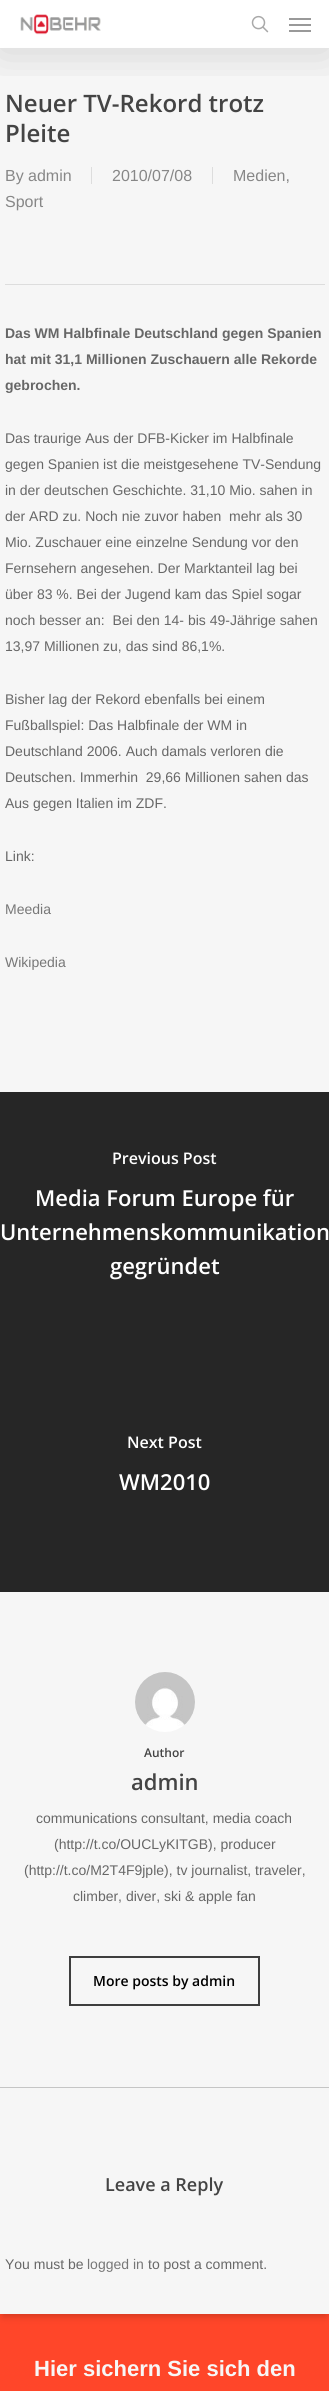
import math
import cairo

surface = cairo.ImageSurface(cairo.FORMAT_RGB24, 329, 2391)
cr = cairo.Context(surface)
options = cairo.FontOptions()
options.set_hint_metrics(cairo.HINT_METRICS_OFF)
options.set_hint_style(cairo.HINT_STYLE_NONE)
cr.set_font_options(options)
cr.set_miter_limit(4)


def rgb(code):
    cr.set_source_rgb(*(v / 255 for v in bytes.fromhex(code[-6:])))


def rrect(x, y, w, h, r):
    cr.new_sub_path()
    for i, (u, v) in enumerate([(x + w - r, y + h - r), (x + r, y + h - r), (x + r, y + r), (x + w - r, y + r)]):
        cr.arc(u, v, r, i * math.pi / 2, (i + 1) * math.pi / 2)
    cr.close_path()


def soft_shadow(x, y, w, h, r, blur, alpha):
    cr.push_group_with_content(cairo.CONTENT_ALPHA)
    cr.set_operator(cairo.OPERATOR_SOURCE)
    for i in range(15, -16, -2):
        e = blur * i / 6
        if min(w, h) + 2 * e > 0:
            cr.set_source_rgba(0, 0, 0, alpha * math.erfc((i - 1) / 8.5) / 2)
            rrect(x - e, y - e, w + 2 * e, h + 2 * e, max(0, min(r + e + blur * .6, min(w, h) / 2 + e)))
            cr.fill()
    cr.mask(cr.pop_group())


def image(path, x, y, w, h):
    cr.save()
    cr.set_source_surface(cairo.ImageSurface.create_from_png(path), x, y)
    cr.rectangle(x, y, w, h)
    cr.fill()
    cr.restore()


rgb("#ffffff")
cr.paint()
rgb("#ff4629")
cr.rectangle(0, 2314, 329, 77)
cr.fill()
rgb("#000000")
soft_shadow(3, 56, 323, 2260, 0, 4, 0.2)
rgb("#f6f6f6")
cr.rectangle(0, 48, 329, 2266)
cr.fill()
cr.save()
cr.rectangle(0, 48, 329, 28)
cr.clip()
rgb("#000000")
soft_shadow(0, 3, 329, 48, 0, 22.5, 0.15)
cr.restore()
image("img/1.png", 20, 14, 81, 21)
image("img/2.png", 251, 15, 18, 18)
for x, y, w, h, color in [
    (289, 18, 22, 2, "#999999"),
    (289, 30, 22, 2, "#999999"),
    (289, 24, 22, 2, "#999999"),
    (5, 284, 320, 1, "#dddddd"),
    (91, 167, 1, 17, "#dddddd"),
    (212, 167, 1, 17, "#dddddd"),
    (0, 1092, 329, 500, "#262626"),
]:
    rgb(color)
    cr.rectangle(x, y, w, h)
    cr.fill()
image("img/3.png", 135, 1672, 60, 60)
cr.rectangle(70, 1957, 189, 48)
rgb("#3e3e3e")
cr.stroke()
rgb("#c5c5c5")
cr.rectangle(0, 2087, 329, 1)
cr.fill()
cr.select_font_face("Open Sans SemiBold")
cr.set_font_size(24)
rgb("#444444")
cr.move_to(5, 112)
cr.show_text("Neuer TV-Rekord trotz")
cr.move_to(5, 142)
cr.show_text("Pleite")
cr.select_font_face("Liberation Sans")
cr.set_font_size(16)
rgb("#878787")
for x, y, s in [
    (5, 181, "By"),
    (28, 181, "admin"),
    (112, 181, "2010/07/08"),
    (233, 181, "Medien,"),
    (5, 207, "Sport"),
]:
    cr.move_to(x, y)
    cr.show_text(s)
cr.select_font_face("Liberation Sans", cairo.FONT_SLANT_NORMAL, cairo.FONT_WEIGHT_BOLD)
cr.set_font_size(14)
rgb("#676767")
for x, y, s in [
    (5, 338, "Das WM Halbfinale Deutschland gegen Spanien"),
    (5, 364, "hat mit 31,1 Millionen Zuschauern alle Rekorde"),
    (5, 390, "gebrochen."),
]:
    cr.move_to(x, y)
    cr.show_text(s)
cr.select_font_face("Liberation Sans")
for x, y, s in [
    (5, 443, "Das traurige Aus der DFB-Kicker im Halbfinale"),
    (5, 469, "gegen Spanien ist die meistgesehene TV-Sendung"),
    (5, 495, "in der deutschen Geschichte. 31,10 Mio. sahen in"),
    (5, 521, "der ARD zu. Noch nie zuvor haben  mehr als 30"),
    (5, 547, "Mio. Zuschauer eine einzelne Sendung vor den"),
    (5, 573, "Fernsehern angesehen. Der Marktanteil lag bei"),
    (5, 599, "über 83 %. Bei der Jugend kam das Spiel sogar"),
    (5, 625, "noch besser an:  Bei den 14- bis 49-Jährige sahen"),
    (5, 651, "13,97 Millionen zu, das sind 86,1%."),
    (5, 704, "Bisher lag der Rekord ebenfalls bei einem"),
    (5, 730, "Fußballspiel: Das Halbfinale der WM in"),
    (5, 756, "Deutschland 2006. Auch damals verloren die"),
    (5, 782, "Deutschen. Immerhin  29,66 Millionen sahen das"),
    (5, 808, "Aus gegen Italien im ZDF."),
    (5, 861, "Link:"),
]:
    cr.move_to(x, y)
    cr.show_text(s)
rgb("#777777")
cr.move_to(5, 914)
cr.show_text("Meedia")
cr.move_to(5, 967)
cr.show_text("Wikipedia")
cr.select_font_face("Open Sans SemiBold")
cr.set_font_size(16)
rgb("#ffffff")
cr.move_to(112, 1164)
cr.show_text("Previous Post")
cr.set_font_size(22)
for x, y, s in [
    (35, 1206, "Media Forum Europe für"),
    (0, 1240, "Unternehmenskommunikation"),
    (110, 1274, "gegründet"),
]:
    cr.move_to(x, y)
    cr.show_text(s)
cr.set_font_size(16)
cr.move_to(127, 1448)
cr.show_text("Next Post")
cr.set_font_size(22)
cr.move_to(119, 1490)
cr.show_text("WM2010")
cr.set_font_size(12)
rgb("#444444")
cr.move_to(144, 1757)
cr.show_text("Author")
cr.set_font_size(22)
cr.move_to(131, 1790)
cr.show_text("admin")
cr.select_font_face("Liberation Sans")
cr.set_font_size(14)
rgb("#676767")
for x, y, s in [
    (36, 1823, "communications consultant, media coach"),
    (54, 1849, "(http://t.co/OUCLyKITGB), producer"),
    (24, 1875, "(http://t.co/M2T4F9jple), tv journalist, traveler,"),
    (73, 1901, "climber, diver, ski & apple fan"),
]:
    cr.move_to(x, y)
    cr.show_text(s)
cr.select_font_face("Open Sans SemiBold")
rgb("#000000")
cr.move_to(93, 1986)
cr.show_text("More posts by admin")
cr.set_font_size(18)
rgb("#444444")
cr.move_to(105, 2191)
cr.show_text("Leave a Reply")
cr.select_font_face("Liberation Sans")
cr.set_font_size(14)
rgb("#676767")
cr.move_to(5, 2269)
cr.show_text("You must be")
rgb("#777777")
cr.move_to(87, 2269)
cr.show_text("logged in")
rgb("#676767")
cr.move_to(148, 2269)
cr.show_text("to post a comment.")
cr.select_font_face("Liberation Sans", cairo.FONT_SLANT_NORMAL, cairo.FONT_WEIGHT_BOLD)
cr.set_font_size(22)
rgb("#f7f7f7")
cr.move_to(34, 2376)
cr.show_text("Hier sichern Sie sich den")
surface.write_to_png("page.png")
